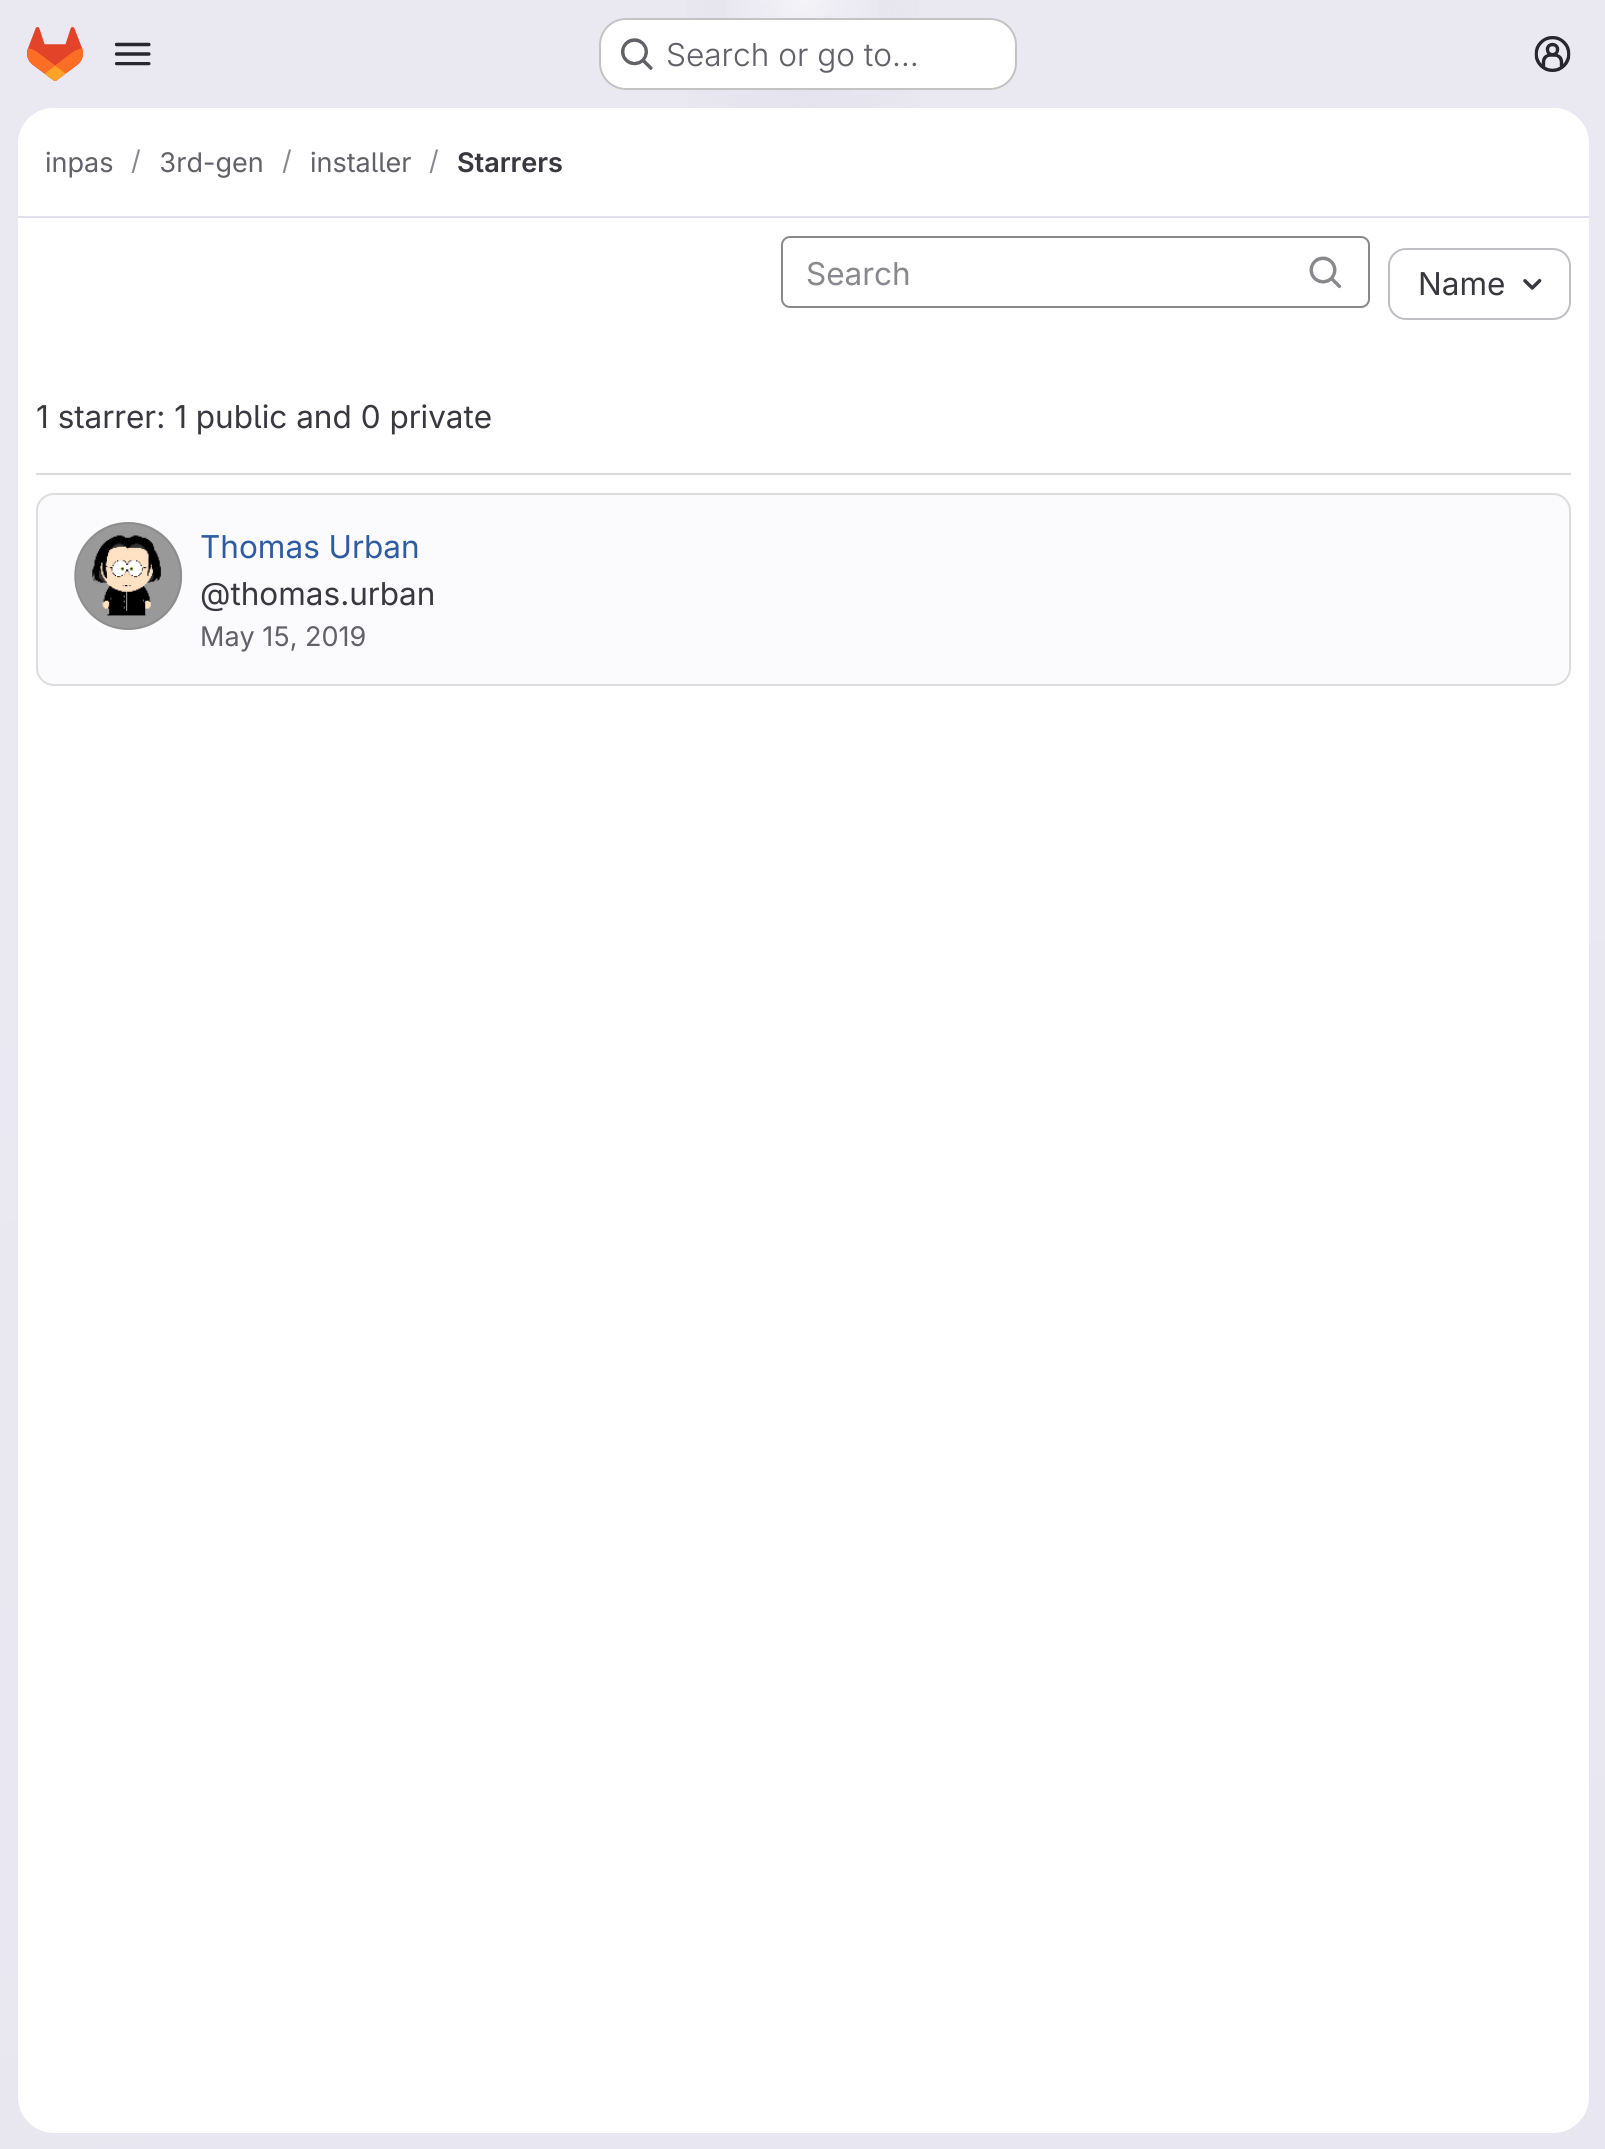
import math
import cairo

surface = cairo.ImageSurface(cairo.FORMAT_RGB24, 1605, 2149)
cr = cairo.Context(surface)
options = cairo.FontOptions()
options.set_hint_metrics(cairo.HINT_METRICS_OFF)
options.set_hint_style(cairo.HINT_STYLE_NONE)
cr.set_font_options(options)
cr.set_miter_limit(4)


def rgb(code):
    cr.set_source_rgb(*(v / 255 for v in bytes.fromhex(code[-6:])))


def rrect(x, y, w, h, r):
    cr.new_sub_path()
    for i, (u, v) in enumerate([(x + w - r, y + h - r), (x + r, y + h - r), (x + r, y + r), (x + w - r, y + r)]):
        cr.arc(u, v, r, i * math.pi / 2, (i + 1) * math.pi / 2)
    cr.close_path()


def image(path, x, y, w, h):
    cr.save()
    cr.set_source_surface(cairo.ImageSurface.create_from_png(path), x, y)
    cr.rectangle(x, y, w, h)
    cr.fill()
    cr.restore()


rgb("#ffffff")
cr.paint()
gradient = cairo.LinearGradient(1011, 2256, 595, -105)
gradient.add_color_stop_rgba(0, 0.91, 0.902, 0.941, 1)
gradient.add_color_stop_rgba(0.7, 0.918, 0.914, 0.949, 1)
cr.set_source(gradient)
cr.rectangle(0, 0, 1605, 2149)
cr.fill()
gradient = cairo.RadialGradient(0, 0, 0, 0, 0, 1)
gradient.set_matrix(cairo.Matrix(1 / 803, 0, 0, 1 / 2151, -1 * 803 / 803, -1 * 0 / 2151))
gradient.add_color_stop_rgba(0, 0.894, 0.886, 0.929, 1)
gradient.add_color_stop_rgba(0.2, 0.894, 0.886, 0.929, 0)
cr.set_source(gradient)
cr.rectangle(687, 0, 232, 108)
cr.fill()
gradient = cairo.RadialGradient(0, 0, 0, 0, 0, 1)
gradient.set_matrix(cairo.Matrix(1 / 803, 0, 0, 1 / 2151, -1 * 803 / 803, -1 * 0 / 2151))
gradient.add_color_stop_rgba(0, 0.894, 0.886, 0.925, 1)
gradient.add_color_stop_rgba(0.14, 0.894, 0.886, 0.925, 0)
cr.set_source(gradient)
cr.rectangle(756, 5, 94, 89)
cr.fill()
gradient = cairo.RadialGradient(803, 0, 0, 803, 0, 2296)
gradient.add_color_stop_rgba(0, 1, 1, 1, 0.6)
gradient.add_color_stop_rgba(0.04, 1, 1, 1, 0)
cr.set_source(gradient)
cr.rectangle(727, 0, 152, 78)
cr.fill()
image("img/1.png", 27, 27, 56, 54)
image("img/2.png", 114, 42, 37, 24)
rgb("#ffffff")
rrect(599, 18, 418, 72, 27)
cr.fill()
rrect(600, 19, 416, 70, 26)
cr.set_source_rgba(0.02, 0.02, 0.024, 0.24)
cr.stroke()
image("img/3.png", 621, 38, 32, 32)
image("img/4.png", 1534, 36, 37, 36)
rgb("#ffffff")
rrect(18, 108, 1571, 2025, 36)
cr.fill()
cr.new_path()
cr.move_to(54, 108)
cr.line_to(1553, 108)
cr.curve_to(1573, 108, 1589, 124, 1589, 144)
cr.line_to(1589, 218)
cr.line_to(18, 218)
cr.line_to(18, 144)
cr.curve_to(18, 124, 34, 108, 54, 108)
cr.close_path()
cr.fill()
rgb("#e1dfec")
cr.rectangle(18, 216, 1571, 2)
cr.fill()
rgb("#dcdcde")
cr.rectangle(36, 473, 1535, 2)
cr.fill()
rrect(782, 237, 587, 70, 8)
rgb("#89888d")
cr.stroke()
image("img/5.png", 1309, 256, 33, 33)
rrect(1389, 249, 181, 70, 17)
rgb("#bfbfc3")
cr.stroke()
image("img/6.png", 1523, 278, 19, 12)
rgb("#fbfafd")
rrect(37, 494, 1533, 191, 17)
cr.fill_preserve()
rgb("#dcdcde")
cr.stroke()
image("img/7.png", 74, 522, 109, 108)
cr.arc(128, 576, 53, 0, 2 * math.pi)
cr.set_source_rgba(0.02, 0.02, 0.024, 0.08)
cr.stroke()
cr.select_font_face("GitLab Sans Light")
cr.set_font_size(31.5)
rgb("#626168")
cr.move_to(666, 66)
cr.show_text("Search or go to…")
cr.select_font_face("GitLab Sans")
cr.set_font_size(27)
cr.move_to(45, 172)
cr.show_text("inpas")
rgb("#89888d")
cr.move_to(131, 170)
cr.show_text("/")
rgb("#626168")
cr.move_to(159, 172)
cr.show_text("3rd-gen")
rgb("#89888d")
cr.move_to(282, 170)
cr.show_text("/")
rgb("#626168")
cr.move_to(310, 172)
cr.show_text("installer")
rgb("#89888d")
cr.move_to(429, 170)
cr.show_text("/")
cr.select_font_face("GitLab Sans SemiBold")
rgb("#3a383f")
cr.move_to(457, 172)
cr.show_text("Starrers")
cr.select_font_face("GitLab Sans")
cr.set_font_size(31.5)
rgb("#89888d")
cr.move_to(806, 285)
cr.show_text("Search")
rgb("#3a383f")
cr.move_to(1418, 295)
cr.show_text("Name")
cr.move_to(36, 428)
cr.show_text("1 starrer: 1 public and 0 private")
rgb("#2f5ca0")
cr.move_to(200, 558)
cr.show_text("Thomas Urban")
rgb("#3a383f")
cr.move_to(200, 605)
cr.show_text("@thomas.urban")
cr.set_font_size(27)
rgb("#626168")
cr.move_to(200, 646)
cr.show_text("May 15, 2019")
surface.write_to_png("page.png")
